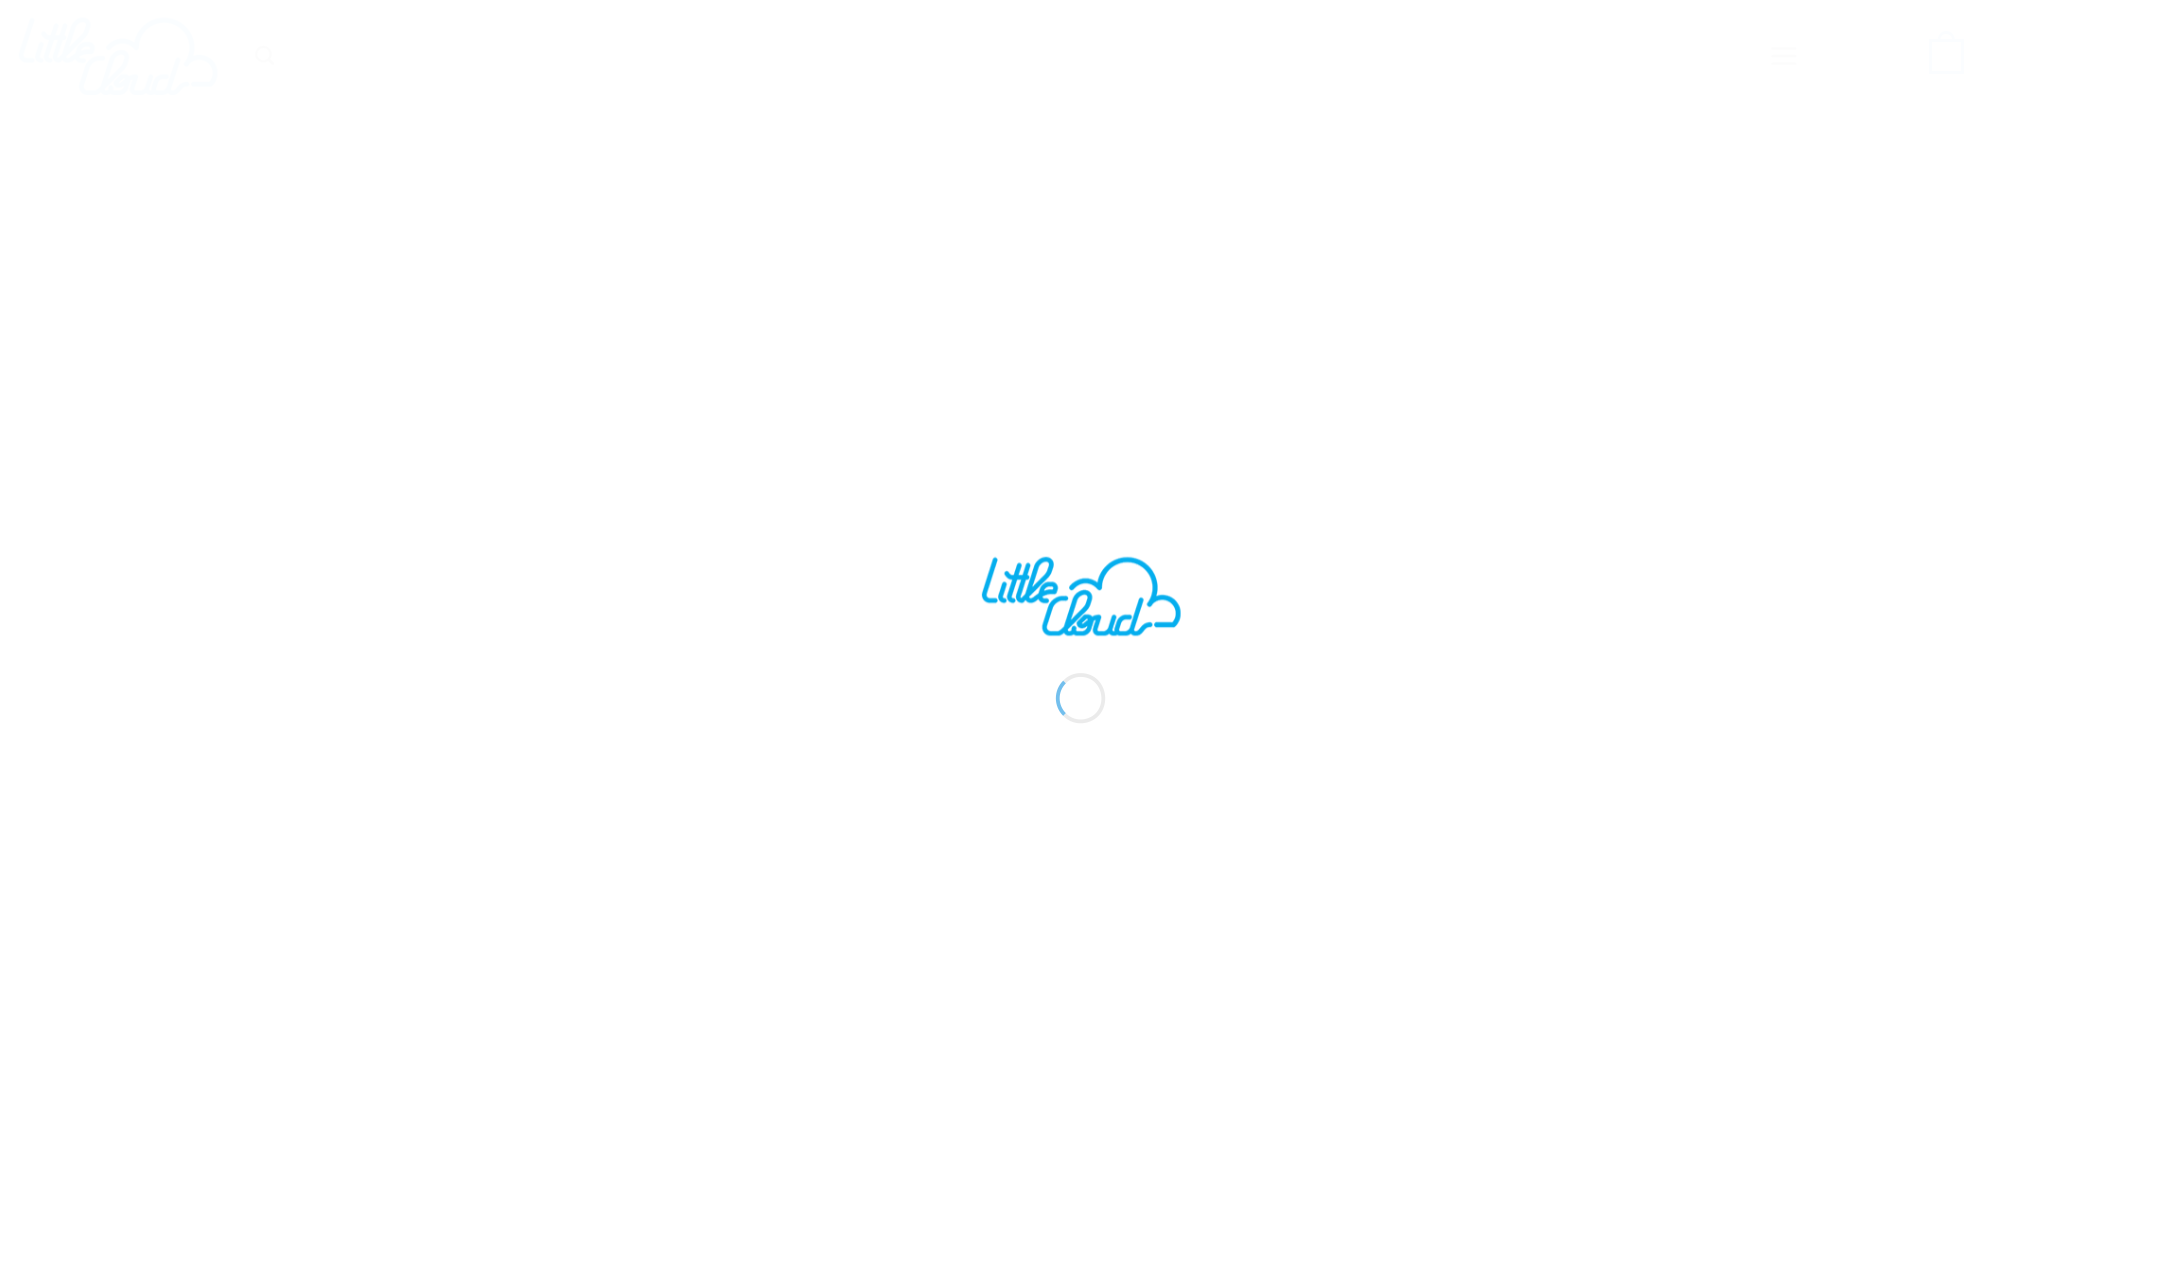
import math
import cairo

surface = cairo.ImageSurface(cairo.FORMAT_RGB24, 2161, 1279)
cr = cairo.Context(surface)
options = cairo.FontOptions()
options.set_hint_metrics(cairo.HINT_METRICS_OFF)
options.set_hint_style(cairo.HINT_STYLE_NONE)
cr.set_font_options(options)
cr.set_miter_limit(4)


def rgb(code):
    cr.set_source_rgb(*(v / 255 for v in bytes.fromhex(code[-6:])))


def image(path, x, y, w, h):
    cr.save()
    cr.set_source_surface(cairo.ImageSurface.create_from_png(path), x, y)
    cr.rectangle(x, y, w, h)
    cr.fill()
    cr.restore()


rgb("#ffffff")
cr.paint()
image("img/1.png", 18, 17, 200, 78)
image("img/2.png", 255, 45, 20, 20)
image("img/3.png", 1771, 47, 26, 18)
cr.rectangle(1930.5, 40.5, 32, 32)
rgb("#fbfdff")
cr.set_line_width(3)
cr.stroke()
cr.set_fill_rule(cairo.FILL_RULE_EVEN_ODD)
cr.new_path()
cr.move_to(1946, 31)
cr.curve_to(1952, 31, 1955, 36, 1955, 41)
cr.line_to(1937.5, 41)
cr.curve_to(1937.5, 36, 1940.5, 31, 1946, 31)
cr.close_path()
cr.move_to(1946, 34)
cr.curve_to(1950.5, 34, 1952.5, 37.5, 1952.5, 41)
cr.line_to(1940, 41)
cr.curve_to(1940, 37.5, 1942, 34, 1946, 34)
cr.close_path()
cr.fill()
image("img/4.png", 981, 556, 200, 81)
cr.new_path()
cr.move_to(1064.5, 682)
cr.curve_to(1068.5, 677.5, 1074.5, 675, 1080.5, 675)
cr.curve_to(1108, 675, 1112, 715.5, 1085, 721)
cr.curve_to(1077.5, 722.5, 1069.5, 720, 1064.5, 714.5)
rgb("#ebebeb")
cr.set_line_width(3.8)
cr.stroke()
cr.new_path()
cr.move_to(1064.5, 714.5)
cr.curve_to(1055.5, 705.5, 1055.5, 691, 1064.5, 682)
rgb("#73bfed")
cr.stroke()
surface.write_to_png("page.png")
